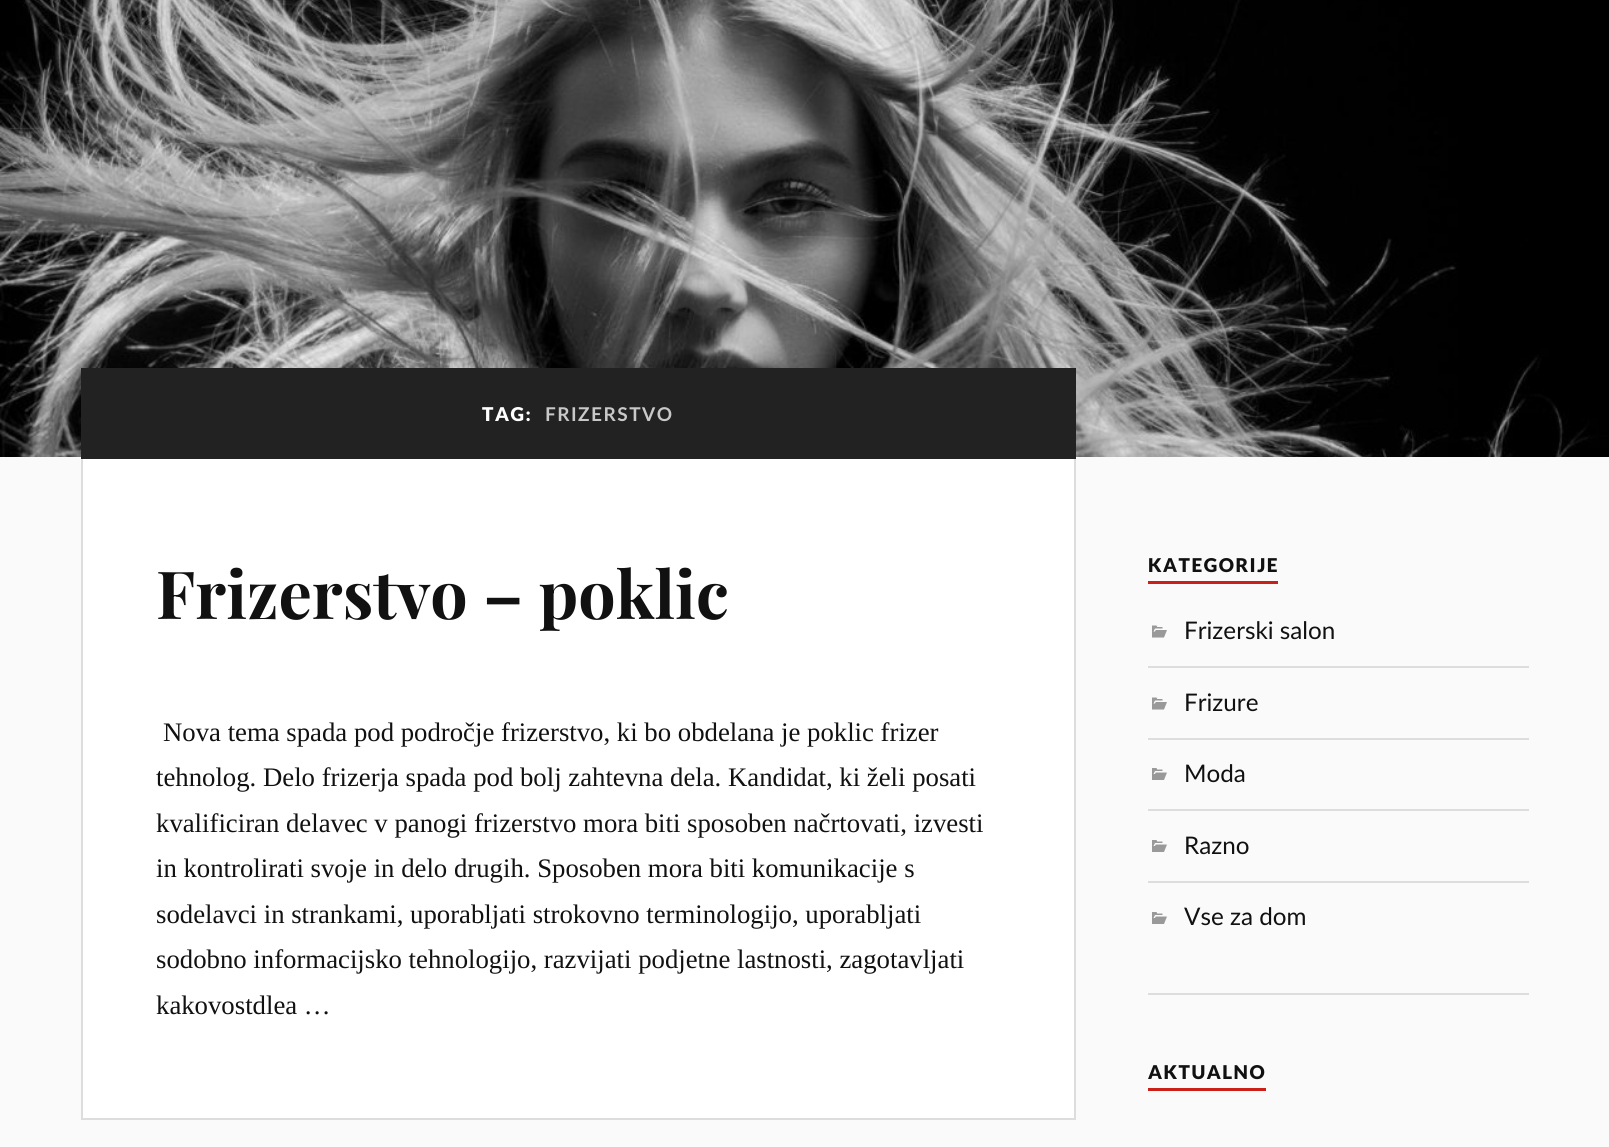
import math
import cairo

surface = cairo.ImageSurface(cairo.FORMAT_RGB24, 1609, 1147)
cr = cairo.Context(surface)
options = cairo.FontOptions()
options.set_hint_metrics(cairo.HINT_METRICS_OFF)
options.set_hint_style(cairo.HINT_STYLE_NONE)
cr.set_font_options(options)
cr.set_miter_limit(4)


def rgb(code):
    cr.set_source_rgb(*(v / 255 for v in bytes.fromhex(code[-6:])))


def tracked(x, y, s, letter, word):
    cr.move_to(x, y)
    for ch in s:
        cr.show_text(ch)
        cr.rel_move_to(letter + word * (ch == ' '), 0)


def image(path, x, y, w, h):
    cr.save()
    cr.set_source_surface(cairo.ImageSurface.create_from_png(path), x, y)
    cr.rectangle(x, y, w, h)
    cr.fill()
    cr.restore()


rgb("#fafafa")
cr.paint()
image("img/1.png", 0, 0, 1609, 457)
for x, y, w, h, color in [
    (81, 368, 995, 91, "#222222"),
    (83, 459, 991, 659, "#ffffff"),
    (1074, 459, 2, 660, "#dddddd"),
    (81, 1118, 995, 2, "#dddddd"),
    (81, 459, 2, 660, "#dddddd"),
    (1148, 581, 130, 3, "#ca2017"),
    (1148, 666, 381, 2, "#dddddd"),
]:
    rgb(color)
    cr.rectangle(x, y, w, h)
    cr.fill()
image("img/2.png", 1152, 625, 15, 13)
cr.rectangle(1148, 738, 381, 2)
cr.fill()
image("img/2.png", 1152, 697, 15, 13)
cr.rectangle(1148, 809, 381, 2)
cr.fill()
image("img/3.png", 1152, 768, 15, 12)
cr.rectangle(1148, 881, 381, 2)
cr.fill()
image("img/3.png", 1152, 840, 15, 12)
image("img/3.png", 1152, 912, 15, 12)
cr.rectangle(1148, 993, 381, 2)
cr.fill()
rgb("#ca2017")
cr.rectangle(1148, 1088, 118, 3)
cr.fill()
cr.select_font_face("Lato Black")
cr.set_font_size(19)
rgb("#ffffff")
tracked(482, 421, "TAG:", 1.5, 0)
cr.select_font_face("Lato", cairo.FONT_SLANT_NORMAL, cairo.FONT_WEIGHT_BOLD)
rgb("#c8c8c8")
tracked(545, 421, "FRIZERSTVO", 1.5, 0)
cr.select_font_face("Playfair Display", cairo.FONT_SLANT_NORMAL, cairo.FONT_WEIGHT_BOLD)
cr.set_font_size(66.25)
rgb("#111111")
cr.move_to(156, 619)
cr.show_text("Frizerstvo – poklic")
cr.select_font_face("Liberation Serif")
cr.set_font_size(26.75)
for x, y, s in [
    (163, 741, "Nova tema spada pod področje frizerstvo, ki bo obdelana je poklic frizer"),
    (156, 786, "tehnolog. Delo frizerja spada pod bolj zahtevna dela. Kandidat, ki želi posati"),
    (156, 832, "kvalificiran delavec v panogi frizerstvo mora biti sposoben načrtovati, izvesti"),
    (156, 877, "in kontrolirati svoje in delo drugih. Sposoben mora biti komunikacije s"),
    (156, 923, "sodelavci in strankami, uporabljati strokovno terminologijo, uporabljati"),
    (156, 968, "sodobno informacijsko tehnologijo, razvijati podjetne lastnosti, zagotavljati"),
    (156, 1014, "kakovostdlea …"),
]:
    cr.move_to(x, y)
    cr.show_text(s)
cr.select_font_face("Lato Black")
cr.set_font_size(19)
tracked(1148, 572, "KATEGORIJE", 1.5, 0)
cr.select_font_face("Lato")
cr.set_font_size(24.25)
for x, y, s in [
    (1184, 639, "Frizerski salon"),
    (1184, 711, "Frizure"),
    (1184, 782, "Moda"),
    (1184, 854, "Razno"),
    (1184, 925, "Vse za dom"),
]:
    cr.move_to(x, y)
    cr.show_text(s)
cr.select_font_face("Lato Black")
cr.set_font_size(19)
tracked(1148, 1079, "AKTUALNO", 1.5, 0)
surface.write_to_png("page.png")
